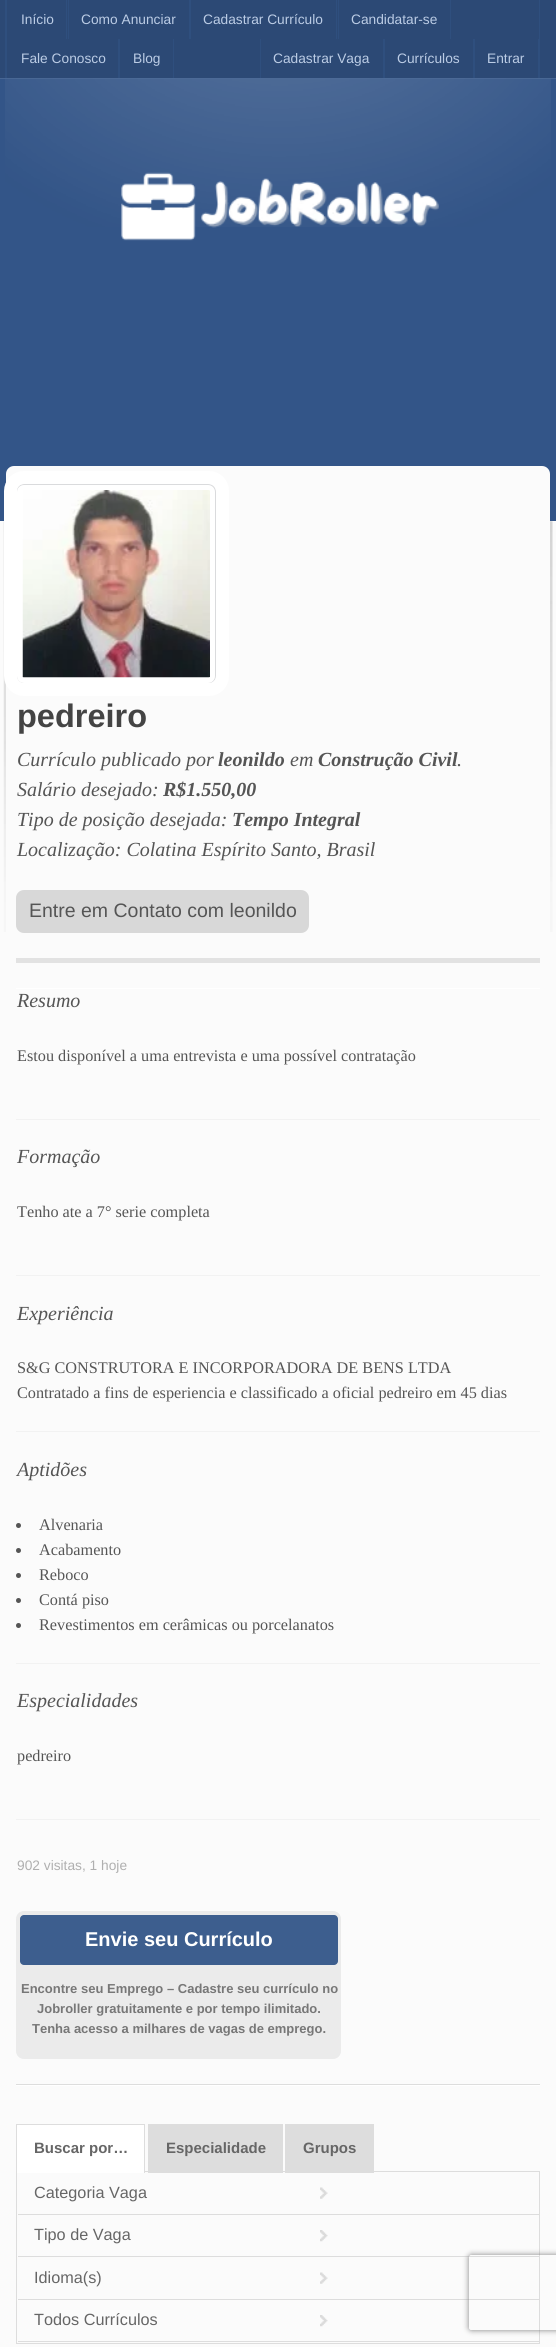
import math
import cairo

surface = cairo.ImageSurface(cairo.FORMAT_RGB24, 556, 2347)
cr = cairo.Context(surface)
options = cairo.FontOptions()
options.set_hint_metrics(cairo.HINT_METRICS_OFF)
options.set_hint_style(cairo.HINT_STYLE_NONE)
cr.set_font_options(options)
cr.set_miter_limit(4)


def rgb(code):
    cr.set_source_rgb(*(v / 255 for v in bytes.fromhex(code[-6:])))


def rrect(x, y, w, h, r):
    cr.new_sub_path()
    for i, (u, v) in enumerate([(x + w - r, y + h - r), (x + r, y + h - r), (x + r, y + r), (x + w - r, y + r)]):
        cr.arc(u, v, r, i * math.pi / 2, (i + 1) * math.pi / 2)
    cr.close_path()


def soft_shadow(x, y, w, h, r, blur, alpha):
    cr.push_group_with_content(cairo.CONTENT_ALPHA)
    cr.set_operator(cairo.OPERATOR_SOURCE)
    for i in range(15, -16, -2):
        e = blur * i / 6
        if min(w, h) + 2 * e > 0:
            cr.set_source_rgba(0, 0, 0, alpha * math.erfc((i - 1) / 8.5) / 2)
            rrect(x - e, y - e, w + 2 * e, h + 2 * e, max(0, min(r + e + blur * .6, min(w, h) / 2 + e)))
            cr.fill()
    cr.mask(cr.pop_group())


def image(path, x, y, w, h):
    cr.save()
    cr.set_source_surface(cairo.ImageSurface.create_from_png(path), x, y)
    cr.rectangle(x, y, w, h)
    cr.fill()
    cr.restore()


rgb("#fbfbfb")
cr.paint()
for x, y, w, h, color in [
    (0, 0, 556, 78, "#2c4975"),
    (539, 0, 1, 78, "#2f4f7e"),
    (5, 0, 1, 78, "#2f4f7e"),
    (66, 0, 1, 39, "#2f4f7e"),
    (6, 0, 1, 78, "#2f4f7e"),
    (189, 0, 2, 39, "#2f4f7e"),
    (68, 0, 1, 39, "#2f4f7e"),
    (336, 0, 1, 39, "#2f4f7e"),
    (450, 0, 1, 39, "#2f4f7e"),
    (338, 0, 1, 39, "#2f4f7e"),
    (118, 39, 2, 39, "#2f4f7e"),
    (173, 39, 1, 39, "#2f4f7e"),
    (260, 39, 1, 39, "#2f4f7e"),
    (383, 39, 2, 39, "#2f4f7e"),
    (538, 39, 1, 39, "#2f4f7e"),
    (473, 39, 2, 39, "#2f4f7e"),
    (0, 79, 556, 442, "#335588"),
    (0, 78, 556, 1, "#476694"),
]:
    rgb(color)
    cr.rectangle(x, y, w, h)
    cr.fill()
image("img/1.png", 5, 78, 546, 149)
image("img/2.png", 121, 172, 318, 69)
image("img/3.png", 3, 521, 550, 411)
rgb("#fbfbfb")
rrect(6, 466, 544, 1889, 8)
cr.fill()
rgb("#e2e2e2")
cr.rectangle(16, 958, 524, 5)
cr.fill()
rgb("#ffffff")
rrect(16.5, 484.5, 199, 199, 7.5)
cr.fill_preserve()
rgb("#dadbdd")
cr.set_line_width(1)
cr.stroke()
image("img/4.png", 22, 490, 188, 188)
rrect(10.5, 477.5, 212, 212, 13.5)
rgb("#ffffff")
cr.set_line_width(13)
cr.stroke()
rgb("#d8d8d8")
rrect(16, 890, 293, 43, 8)
cr.fill()
for x, y, w, h, color in [
    (16, 988, 524, 1, "#ffffff"),
    (16, 1119, 524, 1, "#f2f2f2"),
    (16, 1275, 524, 1, "#f2f2f2"),
    (16, 1431, 524, 1, "#f2f2f2"),
    (16, 1663, 524, 1, "#f2f2f2"),
]:
    rgb(color)
    cr.rectangle(x, y, w, h)
    cr.fill()
rgb("#555555")
cr.arc(18.5, 1525.5, 2.5, 0, 2 * math.pi)
cr.fill()
cr.arc(18.5, 1550.5, 2.5, 0, 2 * math.pi)
cr.fill()
cr.arc(18.5, 1575.5, 2.5, 0, 2 * math.pi)
cr.fill()
cr.arc(18.5, 1600.5, 2.5, 0, 2 * math.pi)
cr.fill()
cr.arc(18.5, 1625.5, 2.5, 0, 2 * math.pi)
cr.fill()
rgb("#f2f2f2")
cr.rectangle(16, 1819, 524, 1)
cr.fill()
rgb("#dddddd")
cr.rectangle(16, 2084, 524, 1)
cr.fill()
rgb("#ebebeb")
rrect(16, 1911, 325, 148, 8)
cr.fill()
rgb("#3d5e8e")
rrect(20, 1915, 318, 50, 4)
cr.fill()
rgb("#ffffff")
cr.rectangle(16, 2085, 524, 1)
cr.fill()
cr.rectangle(16.5, 2171.5, 523, 172)
rgb("#dddddd")
cr.set_line_width(1)
cr.stroke()
for x, y, w, h, color in [
    (17, 2125, 127, 48, "#ffffff"),
    (16, 2124, 129, 1, "#dddddd"),
    (144, 2124, 1, 49, "#dddddd"),
    (16, 2124, 1, 49, "#dddddd"),
    (148, 2124, 135, 49, "#dddddd"),
    (285, 2124, 89, 49, "#dddddd"),
]:
    rgb(color)
    cr.rectangle(x, y, w, h)
    cr.fill()
image("img/5.png", 320, 2187, 8, 12)
cr.rectangle(18, 2214, 521, 1)
cr.fill()
image("img/6.png", 320, 2230, 8, 12)
cr.rectangle(18, 2256, 521, 1)
cr.fill()
image("img/5.png", 320, 2272, 8, 12)
cr.rectangle(18, 2299, 521, 1)
cr.fill()
image("img/6.png", 320, 2315, 8, 12)
cr.rectangle(18, 2341, 521, 1)
cr.fill()
cr.save()
cr.set_fill_rule(cairo.FILL_RULE_EVEN_ODD)
cr.new_path()
cr.move_to(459, 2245)
cr.line_to(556, 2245)
cr.line_to(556, 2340)
cr.line_to(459, 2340)
cr.close_path()
cr.move_to(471.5, 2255)
cr.line_to(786.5, 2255)
cr.curve_to(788, 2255, 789, 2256, 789, 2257.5)
cr.line_to(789, 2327.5)
cr.curve_to(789, 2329, 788, 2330, 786.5, 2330)
cr.line_to(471.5, 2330)
cr.curve_to(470, 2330, 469, 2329, 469, 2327.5)
cr.line_to(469, 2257.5)
cr.curve_to(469, 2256, 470, 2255, 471.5, 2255)
cr.close_path()
cr.clip()
rgb("#808080")
soft_shadow(469, 2255, 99, 75, 2.5, 3, 1)
cr.restore()
cr.select_font_face("Liberation Sans")
cr.set_font_size(13.75)
rgb("#bbcce5")
for x, y, s in [
    (21, 24, "Início"),
    (81, 24, "Como Anunciar"),
    (203, 24, "Cadastrar Currículo"),
    (351, 24, "Candidatar-se"),
    (21, 63, "Fale Conosco"),
    (133, 63, "Blog"),
    (273, 63, "Cadastrar Vaga"),
    (397, 63, "Currículos"),
    (487, 63, "Entrar"),
]:
    cr.move_to(x, y)
    cr.show_text(s)
cr.select_font_face("Liberation Sans", cairo.FONT_SLANT_NORMAL, cairo.FONT_WEIGHT_BOLD)
cr.set_font_size(32.5)
rgb("#444444")
cr.move_to(17, 727)
cr.show_text("pedreiro")
cr.select_font_face("Liberation Serif", cairo.FONT_SLANT_ITALIC)
cr.set_font_size(20)
rgb("#555555")
cr.move_to(17, 766)
cr.show_text("Currículo publicado por")
cr.select_font_face("Liberation Serif", cairo.FONT_SLANT_ITALIC, cairo.FONT_WEIGHT_BOLD)
cr.move_to(218, 766)
cr.show_text("leonildo")
cr.select_font_face("Liberation Serif", cairo.FONT_SLANT_ITALIC)
cr.move_to(290, 766)
cr.show_text("em")
cr.select_font_face("Liberation Serif", cairo.FONT_SLANT_ITALIC, cairo.FONT_WEIGHT_BOLD)
cr.move_to(318, 766)
cr.show_text("Construção Civil")
cr.select_font_face("Liberation Serif", cairo.FONT_SLANT_ITALIC)
cr.move_to(457, 766)
cr.show_text(".")
cr.move_to(17, 796)
cr.show_text("Salário desejado:")
cr.select_font_face("Liberation Serif", cairo.FONT_SLANT_ITALIC, cairo.FONT_WEIGHT_BOLD)
cr.move_to(163, 796)
cr.show_text("R$1.550,00")
cr.select_font_face("Liberation Serif", cairo.FONT_SLANT_ITALIC)
cr.move_to(17, 826)
cr.show_text("Tipo de posição desejada:")
cr.select_font_face("Liberation Serif", cairo.FONT_SLANT_ITALIC, cairo.FONT_WEIGHT_BOLD)
cr.move_to(232, 826)
cr.show_text("Tempo Integral")
cr.select_font_face("Liberation Serif", cairo.FONT_SLANT_ITALIC)
cr.move_to(17, 856)
cr.show_text("Localização: Colatina Espírito Santo, Brasil")
cr.select_font_face("Liberation Sans")
cr.set_font_size(19.5)
cr.move_to(29, 917)
cr.show_text("Entre em Contato com leonildo")
cr.select_font_face("Liberation Serif", cairo.FONT_SLANT_ITALIC)
cr.set_font_size(20)
cr.move_to(17, 1007)
cr.show_text("Resumo")
cr.select_font_face("Liberation Serif")
cr.set_font_size(16.25)
cr.move_to(17, 1061)
cr.show_text("Estou disponível a uma entrevista e uma possível contratação")
cr.select_font_face("Liberation Serif", cairo.FONT_SLANT_ITALIC)
cr.set_font_size(20)
cr.move_to(17, 1163)
cr.show_text("Formação")
cr.select_font_face("Liberation Serif")
cr.set_font_size(16.25)
cr.move_to(17, 1217)
cr.show_text("Tenho ate a 7° serie completa")
cr.select_font_face("Liberation Serif", cairo.FONT_SLANT_ITALIC)
cr.set_font_size(20)
cr.move_to(17, 1320)
cr.show_text("Experiência")
cr.select_font_face("Liberation Serif")
cr.set_font_size(16.25)
cr.move_to(17, 1373)
cr.show_text("S&G CONSTRUTORA E INCORPORADORA DE BENS LTDA")
cr.move_to(17, 1398)
cr.show_text("Contratado a fins de esperiencia e classificado a oficial pedreiro em 45 dias")
cr.select_font_face("Liberation Serif", cairo.FONT_SLANT_ITALIC)
cr.set_font_size(20)
cr.move_to(17, 1476)
cr.show_text("Aptidões")
cr.select_font_face("Liberation Serif")
cr.set_font_size(16.25)
for x, y, s in [
    (39, 1530, "Alvenaria"),
    (39, 1555, "Acabamento"),
    (39, 1580, "Reboco"),
    (39, 1605, "Contá piso"),
    (39, 1630, "Revestimentos em cerâmicas ou porcelanatos"),
]:
    cr.move_to(x, y)
    cr.show_text(s)
cr.select_font_face("Liberation Serif", cairo.FONT_SLANT_ITALIC)
cr.set_font_size(20)
cr.move_to(17, 1707)
cr.show_text("Especialidades")
cr.select_font_face("Liberation Serif")
cr.set_font_size(16.25)
cr.move_to(17, 1761)
cr.show_text("pedreiro")
cr.select_font_face("Liberation Sans")
cr.set_font_size(13.75)
rgb("#afafaf")
cr.move_to(17, 1870)
cr.show_text("902 visitas, 1 hoje")
cr.select_font_face("Liberation Sans", cairo.FONT_SLANT_NORMAL, cairo.FONT_WEIGHT_BOLD)
cr.set_font_size(20)
rgb("#ffffff")
cr.move_to(85, 1946)
cr.show_text("Envie seu Currículo")
cr.set_font_size(13)
rgb("#777777")
for x, y, s in [
    (21, 1993, "Encontre seu Emprego – Cadastre seu currículo no"),
    (37, 2013, "Jobroller gratuitamente e por tempo ilimitado."),
    (32, 2033, "Tenha acesso a milhares de vagas de emprego."),
]:
    cr.move_to(x, y)
    cr.show_text(s)
cr.set_font_size(15)
rgb("#666666")
for x, y, s in [
    (34, 2153, "Buscar por…"),
    (166, 2153, "Especialidade"),
    (303, 2153, "Grupos"),
]:
    cr.move_to(x, y)
    cr.show_text(s)
cr.select_font_face("Liberation Sans")
cr.set_font_size(16.25)
for x, y, s in [
    (34, 2198, "Categoria Vaga"),
    (34, 2240, "Tipo de Vaga"),
    (34, 2283, "Idioma(s)"),
    (34, 2325, "Todos Currículos"),
]:
    cr.move_to(x, y)
    cr.show_text(s)
surface.write_to_png("page.png")
